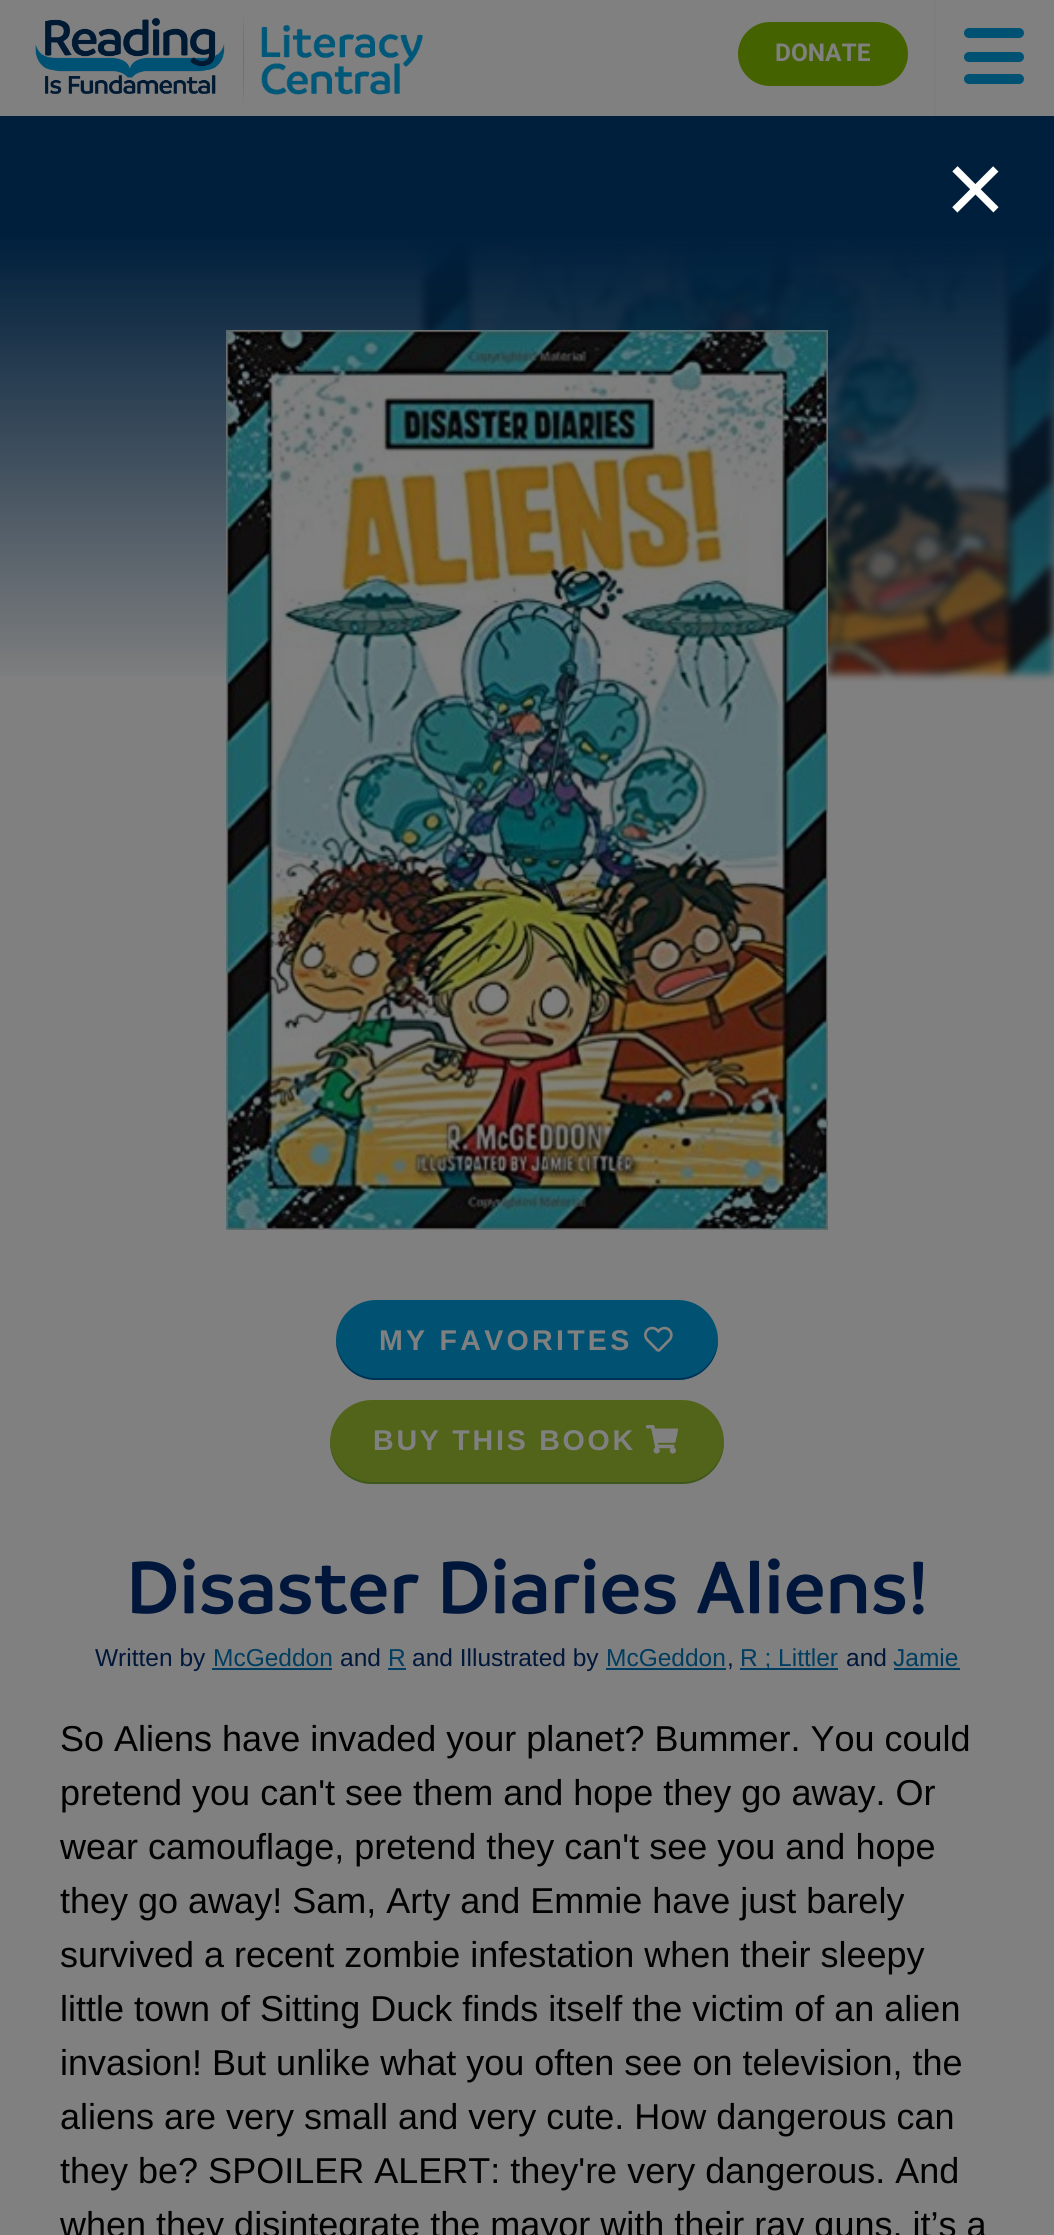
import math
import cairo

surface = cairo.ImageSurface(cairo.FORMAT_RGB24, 1054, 2235)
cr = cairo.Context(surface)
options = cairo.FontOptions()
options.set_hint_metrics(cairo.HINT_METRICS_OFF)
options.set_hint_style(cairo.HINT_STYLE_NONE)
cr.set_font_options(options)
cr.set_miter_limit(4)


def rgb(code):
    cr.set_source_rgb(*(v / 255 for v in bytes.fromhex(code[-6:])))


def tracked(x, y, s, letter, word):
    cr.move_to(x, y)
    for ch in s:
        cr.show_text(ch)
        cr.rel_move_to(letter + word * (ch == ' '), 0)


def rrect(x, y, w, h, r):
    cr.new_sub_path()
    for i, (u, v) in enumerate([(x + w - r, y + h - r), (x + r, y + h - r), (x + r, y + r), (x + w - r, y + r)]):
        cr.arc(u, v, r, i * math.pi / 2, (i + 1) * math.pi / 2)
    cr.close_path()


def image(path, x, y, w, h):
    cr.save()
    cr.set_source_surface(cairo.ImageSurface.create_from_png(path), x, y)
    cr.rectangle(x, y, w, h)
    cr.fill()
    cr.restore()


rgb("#808080")
cr.paint()
image("img/1.png", 35, 18, 190, 76)
image("img/2.png", 242, 15, 2, 92)
image("img/3.png", 261, 24, 162, 71)
rgb("#456200")
rrect(738, 22, 170, 64, 32)
cr.fill()
rgb("#7c7d7d")
cr.new_path()
cr.move_to(934, 116)
cr.line_to(934, -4)
cr.line_to(936, -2)
cr.line_to(936, 114)
cr.close_path()
cr.fill()
rgb("#005172")
rrect(964, 28, 60, 10, 5)
cr.fill()
rrect(964, 52, 60, 10, 5)
cr.fill()
rrect(964, 74, 60, 10, 5)
cr.fill()
image("img/4.png", 415, 239, 639, 443)
gradient = cairo.LinearGradient(527, 86, 527, 686)
gradient.add_color_stop_rgba(0, 0, 0.122, 0.235, 1)
gradient.add_color_stop_rgba(0.25, 0, 0.122, 0.235, 1)
gradient.add_color_stop_rgba(1, 0, 0.122, 0.235, 0)
cr.set_source(gradient)
cr.rectangle(0, 116, 1054, 560)
cr.fill()
image("img/5.png", 226, 330, 602, 900)
rgb("#005172")
rrect(336, 1300, 382, 80, 40)
cr.fill()
rgb("#003356")
cr.new_path()
cr.move_to(336, 1339)
cr.line_to(336, 1340)
cr.curve_to(336, 1362, 354, 1380, 376, 1380)
cr.line_to(678, 1380)
cr.curve_to(700, 1380, 718, 1362, 718, 1340)
cr.line_to(718, 1339)
cr.curve_to(717, 1361, 700, 1378, 678, 1378)
cr.line_to(376, 1378)
cr.curve_to(354, 1378, 337, 1361, 336, 1339)
cr.close_path()
cr.fill()
image("img/6.png", 644, 1326, 29, 26)
rgb("#52631a")
rrect(330, 1400, 394, 84, 42)
cr.fill()
cr.set_source_rgba(0.157, 0.306, 0.102, 0.5)
cr.new_path()
cr.move_to(330, 1441)
cr.line_to(330, 1442)
cr.curve_to(330, 1465, 349, 1484, 372, 1484)
cr.line_to(682, 1484)
cr.curve_to(705, 1484, 724, 1465, 724, 1442)
cr.line_to(724, 1441)
cr.curve_to(723, 1464, 705, 1482, 682, 1482)
cr.line_to(372, 1482)
cr.curve_to(349, 1482, 331, 1464, 330, 1441)
cr.close_path()
cr.fill()
image("img/7.png", 646, 1425, 33, 29)
for x, y, w, h, color in [
    (212, 1668, 120, 2, "#003d60"),
    (388, 1668, 18, 2, "#003d60"),
    (606, 1668, 120, 2, "#003d60"),
    (740, 1668, 98, 2, "#003d60"),
    (894, 1668, 66, 2, "#003d60"),
]:
    rgb(color)
    cr.rectangle(x, y, w, h)
    cr.fill()
cr.select_font_face("Roboto", cairo.FONT_SLANT_NORMAL, cairo.FONT_WEIGHT_BOLD)
cr.set_font_size(24.5)
rgb("#808080")
cr.move_to(775, 61)
cr.show_text("DONATE")
cr.select_font_face("Liberation Sans")
cr.set_font_size(104)
rgb("#ffffff")
cr.move_to(945, 224)
cr.show_text("×")
cr.select_font_face("Liberation Sans", cairo.FONT_SLANT_NORMAL, cairo.FONT_WEIGHT_BOLD)
cr.set_font_size(28.6)
rgb("#808080")
tracked(379, 1350, "MY FAVORITES", 3.25, 0)
tracked(373, 1450, "BUY THIS BOOK", 2.75, 0)
cr.select_font_face("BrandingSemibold")
cr.set_font_size(79.25)
rgb("#00163b")
cr.move_to(126, 1613)
cr.show_text("Disaster Diaries Aliens!")
cr.select_font_face("Liberation Sans")
cr.set_font_size(24.5)
cr.move_to(95, 1666)
cr.show_text("Written by")
rgb("#003d60")
cr.move_to(213, 1666)
cr.show_text("McGeddon")
rgb("#00163b")
cr.move_to(340, 1666)
cr.show_text("and")
rgb("#003d60")
cr.move_to(388, 1666)
cr.show_text("R")
rgb("#00163b")
cr.move_to(412, 1666)
cr.show_text("and Illustrated by")
rgb("#003d60")
cr.move_to(606, 1666)
cr.show_text("McGeddon")
rgb("#00163b")
cr.move_to(727, 1666)
cr.show_text(",")
rgb("#003d60")
cr.move_to(740, 1666)
cr.show_text("R ; Littler")
rgb("#00163b")
cr.move_to(846, 1666)
cr.show_text("and")
rgb("#003d60")
cr.move_to(893, 1666)
cr.show_text("Jamie")
cr.set_font_size(36)
rgb("#000000")
for x, y, s in [
    (60, 1751, "So Aliens have invaded your planet? Bummer. You could"),
    (60, 1805, "pretend you can't see them and hope they go away. Or"),
    (60, 1859, "wear camouflage, pretend they can't see you and hope"),
    (60, 1913, "they go away! Sam, Arty and Emmie have just barely"),
    (60, 1967, "survived a recent zombie infestation when their sleepy"),
    (60, 2021, "little town of Sitting Duck finds itself the victim of an alien"),
    (60, 2075, "invasion! But unlike what you often see on television, the"),
    (60, 2129, "aliens are very small and very cute. How dangerous can"),
    (60, 2183, "they be? SPOILER ALERT: they're very dangerous. And"),
    (60, 2237, "when they disintegrate the mayor with their ray guns, it’s a"),
]:
    cr.move_to(x, y)
    cr.show_text(s)
surface.write_to_png("page.png")
